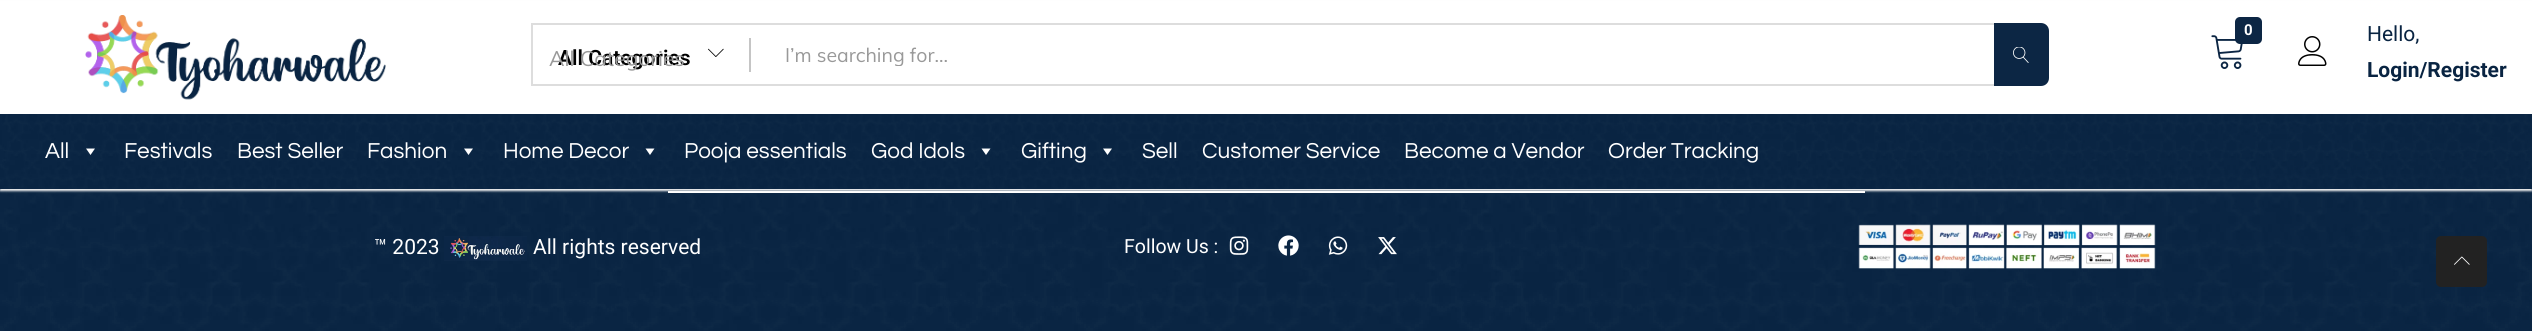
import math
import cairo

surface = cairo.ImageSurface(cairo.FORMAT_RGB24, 2532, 331)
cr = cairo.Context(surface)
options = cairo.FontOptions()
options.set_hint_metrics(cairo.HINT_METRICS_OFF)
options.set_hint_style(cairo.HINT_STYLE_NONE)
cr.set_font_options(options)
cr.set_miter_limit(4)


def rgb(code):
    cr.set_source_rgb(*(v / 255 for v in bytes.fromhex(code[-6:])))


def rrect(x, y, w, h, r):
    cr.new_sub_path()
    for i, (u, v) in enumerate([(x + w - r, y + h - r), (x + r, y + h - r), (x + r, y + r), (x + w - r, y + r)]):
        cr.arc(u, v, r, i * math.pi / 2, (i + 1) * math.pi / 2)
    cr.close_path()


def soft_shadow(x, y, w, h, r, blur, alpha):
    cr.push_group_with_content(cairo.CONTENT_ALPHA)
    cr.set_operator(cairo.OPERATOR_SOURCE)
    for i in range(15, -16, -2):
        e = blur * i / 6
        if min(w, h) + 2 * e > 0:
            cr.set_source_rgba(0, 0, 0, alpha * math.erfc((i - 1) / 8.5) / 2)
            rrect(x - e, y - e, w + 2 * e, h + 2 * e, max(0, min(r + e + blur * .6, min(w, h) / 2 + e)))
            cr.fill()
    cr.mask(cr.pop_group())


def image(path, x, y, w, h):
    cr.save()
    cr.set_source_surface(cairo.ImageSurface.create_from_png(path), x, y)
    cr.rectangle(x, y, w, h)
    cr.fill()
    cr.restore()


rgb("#ffffff")
cr.paint()
image("img/7.png", 0, 189, 2532, 142)
rgb("#ffffff")
cr.rectangle(668, 191, 1197, 2)
cr.fill()
rgb("#f0f0f0")
soft_shadow(0, 2, 2532, 189, 0, 1, 1)
rgb("#ffffff")
cr.rectangle(0, 1, 2532, 113)
cr.fill()
image("img/1.png", 85, 15, 301, 85)
for x, y, w, h, color in [
    (531, 23, 1463, 2, "#dddddd"),
    (531, 84, 1463, 2, "#dddddd"),
    (531, 23, 2, 63, "#dddddd"),
]:
    rgb(color)
    cr.rectangle(x, y, w, h)
    cr.fill()
image("img/2.png", 708, 48, 16, 9)
rgb("#c5c5c5")
cr.rectangle(749, 38, 2, 34)
cr.fill()
rgb("#0c2644")
cr.new_path()
cr.move_to(1994, 23)
cr.line_to(2041, 23)
cr.curve_to(2045.5, 23, 2049, 26.5, 2049, 31)
cr.line_to(2049, 78)
cr.curve_to(2049, 82.5, 2045.5, 86, 2041, 86)
cr.line_to(1994, 86)
cr.close_path()
cr.fill()
image("img/3.png", 2013, 47, 16, 16)
image("img/4.png", 2211, 35, 32, 34)
rrect(2235, 17, 27, 27, 5)
cr.fill()
image("img/5.png", 2298, 36, 29, 30)
image("img/6.png", 0, 114, 2532, 75)
rgb("#ffffff")
cr.new_path()
cr.move_to(95, 148.5)
cr.line_to(90.5, 155)
cr.line_to(86, 148.5)
cr.close_path()
cr.fill()
cr.new_path()
cr.move_to(473, 148.5)
cr.line_to(468.5, 155)
cr.line_to(464, 148.5)
cr.close_path()
cr.fill()
cr.new_path()
cr.move_to(654.5, 148.5)
cr.line_to(650, 155)
cr.line_to(645.5, 148.5)
cr.close_path()
cr.fill()
cr.new_path()
cr.move_to(990.5, 148.5)
cr.line_to(986, 155)
cr.line_to(981.5, 148.5)
cr.close_path()
cr.fill()
cr.new_path()
cr.move_to(1112, 148.5)
cr.line_to(1107.5, 155)
cr.line_to(1103, 148.5)
cr.close_path()
cr.fill()
image("img/8.png", 444, 236, 83, 25)
image("img/9.png", 1229, 236, 20, 19)
image("img/10.png", 1278, 235, 21, 21)
image("img/11.png", 1328, 236, 20, 19)
image("img/12.png", 1378, 237, 19, 18)
image("img/13.png", 1858, 224, 298, 45)
rgb("#222222")
rrect(2436, 236, 51, 51, 5)
cr.fill()
image("img/14.png", 2454, 256, 16, 9)
cr.select_font_face("Roboto SemiBold")
cr.set_font_size(21)
rgb("#000000")
cr.move_to(558, 65)
cr.show_text("All Categories")
cr.select_font_face("Muli")
rgb("#999999")
cr.move_to(549, 66)
cr.show_text("All Categories")
cr.save()
cr.rectangle(785, 42, 1174, 24)
cr.clip()
cr.set_font_size(19.5)
cr.move_to(785, 62)
cr.show_text("I’m searching for...")
cr.restore()
cr.select_font_face("Roboto", cairo.FONT_SLANT_NORMAL, cairo.FONT_WEIGHT_BOLD)
cr.set_font_size(15)
rgb("#ffffff")
cr.move_to(2244, 35)
cr.show_text("0")
cr.select_font_face("Roboto")
cr.set_font_size(21)
rgb("#092442")
cr.move_to(2367, 41)
cr.show_text("Hello,")
cr.select_font_face("Roboto", cairo.FONT_SLANT_NORMAL, cairo.FONT_WEIGHT_BOLD)
cr.move_to(2367, 77)
cr.show_text("Login/Register")
cr.select_font_face("Questrial")
cr.set_font_size(22.5)
rgb("#ffffff")
for x, y, s in [
    (45, 158, "All"),
    (124, 158, "Festivals"),
    (237, 158, "Best Seller"),
    (367, 158, "Fashion"),
    (503, 158, "Home Decor"),
    (684, 158, "Pooja essentials"),
    (871, 158, "God Idols"),
    (1021, 158, "Gifting"),
    (1142, 158, "Sell"),
    (1202, 158, "Customer Service"),
    (1404, 158, "Become a Vendor"),
    (1608, 158, "Order Tracking"),
]:
    cr.move_to(x, y)
    cr.show_text(s)
cr.select_font_face("Roboto")
cr.set_font_size(21)
cr.move_to(374, 254)
cr.show_text("™ 2023")
cr.move_to(533, 254)
cr.show_text("All rights reserved")
cr.set_font_size(19.5)
cr.move_to(1124, 253)
cr.show_text("Follow Us :")
surface.write_to_png("page.png")
